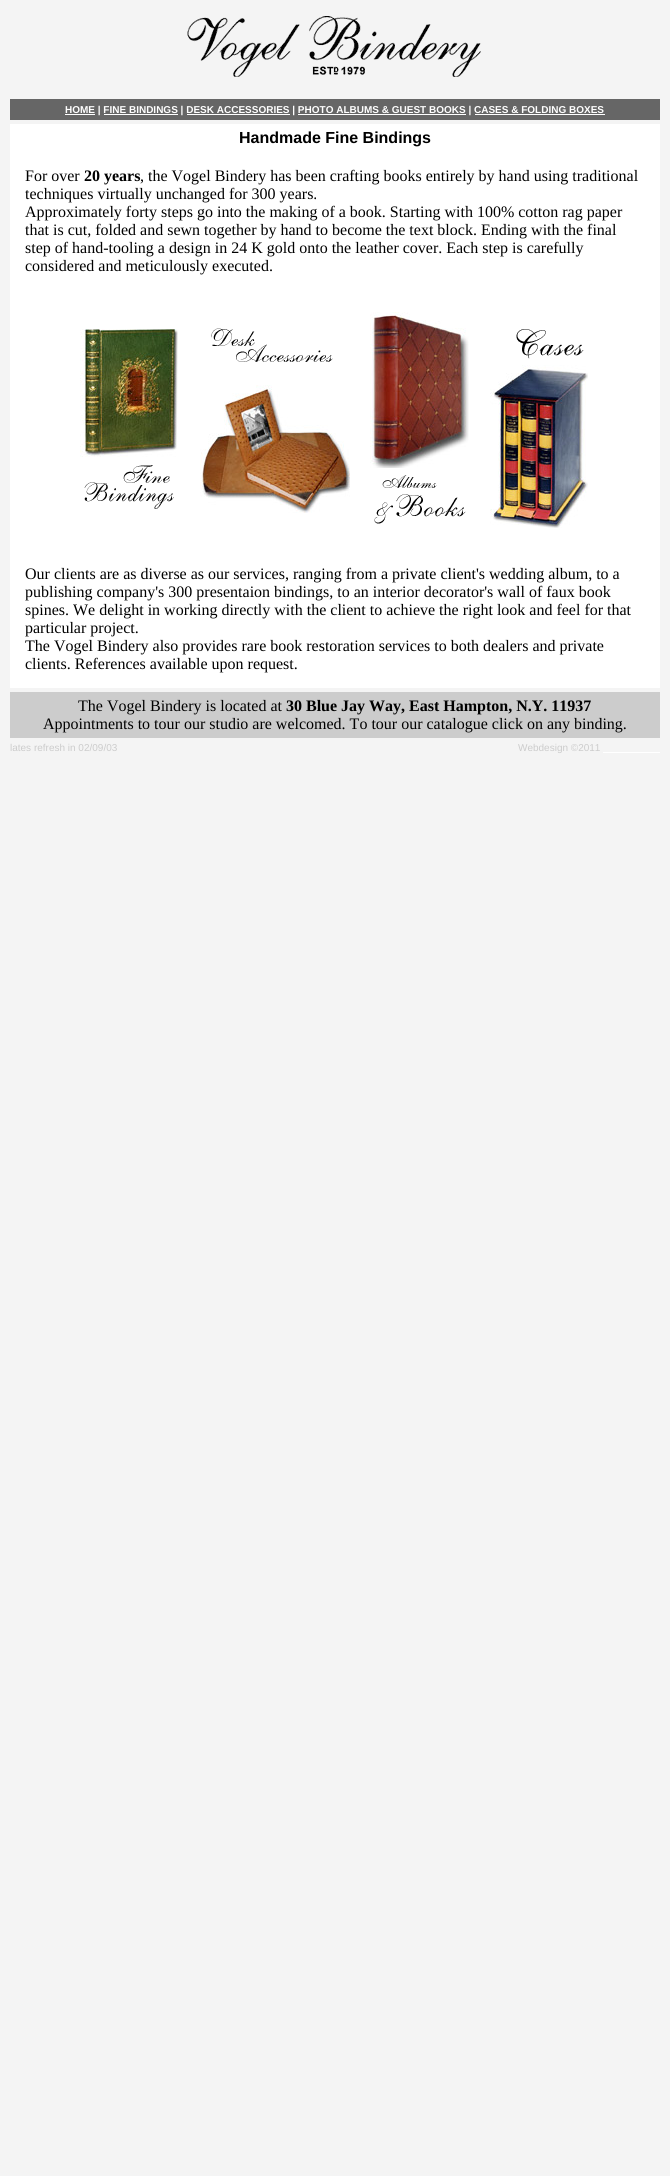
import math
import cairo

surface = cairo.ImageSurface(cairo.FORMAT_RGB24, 670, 2176)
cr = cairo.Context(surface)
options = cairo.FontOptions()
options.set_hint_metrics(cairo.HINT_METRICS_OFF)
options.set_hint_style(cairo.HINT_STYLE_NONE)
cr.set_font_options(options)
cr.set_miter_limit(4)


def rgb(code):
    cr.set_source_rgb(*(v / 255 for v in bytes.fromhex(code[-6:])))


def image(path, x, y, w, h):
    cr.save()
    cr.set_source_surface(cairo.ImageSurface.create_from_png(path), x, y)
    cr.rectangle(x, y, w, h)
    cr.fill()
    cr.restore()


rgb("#f4f4f4")
cr.paint()
image("img/1.png", 187, 16, 294, 61)
for x, y, w, h, color in [
    (10, 99, 650, 21, "#666666"),
    (65, 114, 30, 1, "#ffffff"),
    (104, 114, 74, 1, "#ffffff"),
    (187, 114, 103, 1, "#ffffff"),
    (298, 114, 168, 1, "#ffffff"),
    (475, 114, 130, 1, "#ffffff"),
    (10, 124, 650, 564, "#ffffff"),
]:
    rgb(color)
    cr.rectangle(x, y, w, h)
    cr.fill()
image("img/2.png", 80, 329, 98, 128)
image("img/3.png", 84, 465, 90, 44)
image("img/4.png", 211, 328, 122, 34)
image("img/5.png", 200, 385, 150, 128)
image("img/6.png", 370, 312, 99, 156)
image("img/7.png", 374, 475, 92, 49)
image("img/8.png", 516, 329, 68, 30)
image("img/9.png", 490, 365, 98, 163)
rgb("#cccccc")
cr.rectangle(10, 692, 650, 46)
cr.fill()
rgb("#ffffff")
cr.rectangle(603, 752, 57, 1)
cr.fill()
cr.select_font_face("Liberation Sans", cairo.FONT_SLANT_NORMAL, cairo.FONT_WEIGHT_BOLD)
cr.set_font_size(10)
cr.move_to(65, 113)
cr.show_text("HOME | FINE BINDINGS | DESK ACCESSORIES | PHOTO ALBUMS & GUEST BOOKS | CASES & FOLDING BOXES")
cr.set_font_size(16)
rgb("#000000")
cr.move_to(239, 143)
cr.show_text("Handmade Fine Bindings")
cr.select_font_face("Liberation Serif")
cr.move_to(25, 181)
cr.show_text("For over")
cr.select_font_face("Liberation Serif", cairo.FONT_SLANT_NORMAL, cairo.FONT_WEIGHT_BOLD)
cr.move_to(84, 181)
cr.show_text("20 years")
cr.select_font_face("Liberation Serif")
for x, y, s in [
    (140, 181, ", the Vogel Bindery has been crafting books entirely by hand using traditional"),
    (25, 199, "techniques virtually unchanged for 300 years."),
    (25, 217, "Approximately forty steps go into the making of a book. Starting with 100% cotton rag paper"),
    (25, 235, "that is cut, folded and sewn together by hand to become the text block. Ending with the final"),
    (25, 253, "step of hand-tooling a design in 24 K gold onto the leather cover. Each step is carefully"),
    (25, 271, "considered and meticulously executed."),
    (25, 579, "Our clients are as diverse as our services, ranging from a private client's wedding album, to a"),
    (25, 597, "publishing company's 300 presentaion bindings, to an interior decorator's wall of faux book"),
    (25, 615, "spines. We delight in working directly with the client to achieve the right look and feel for that"),
    (25, 633, "particular project."),
    (25, 651, "The Vogel Bindery also provides rare book restoration services to both dealers and private"),
    (25, 669, "clients. References available upon request."),
    (78, 711, "The Vogel Bindery is located at"),
]:
    cr.move_to(x, y)
    cr.show_text(s)
cr.select_font_face("Liberation Serif", cairo.FONT_SLANT_NORMAL, cairo.FONT_WEIGHT_BOLD)
cr.move_to(286, 711)
cr.show_text("30 Blue Jay Way, East Hampton, N.Y. 11937")
cr.select_font_face("Liberation Serif")
cr.move_to(43, 729)
cr.show_text("Appointments to tour our studio are welcomed. To tour our catalogue click on any binding.")
cr.select_font_face("Liberation Sans")
cr.set_font_size(10)
rgb("#cccccc")
cr.move_to(10, 751)
cr.show_text("lates refresh in 02/09/03")
cr.move_to(518, 751)
cr.show_text("Webdesign ©2011")
surface.write_to_png("page.png")
